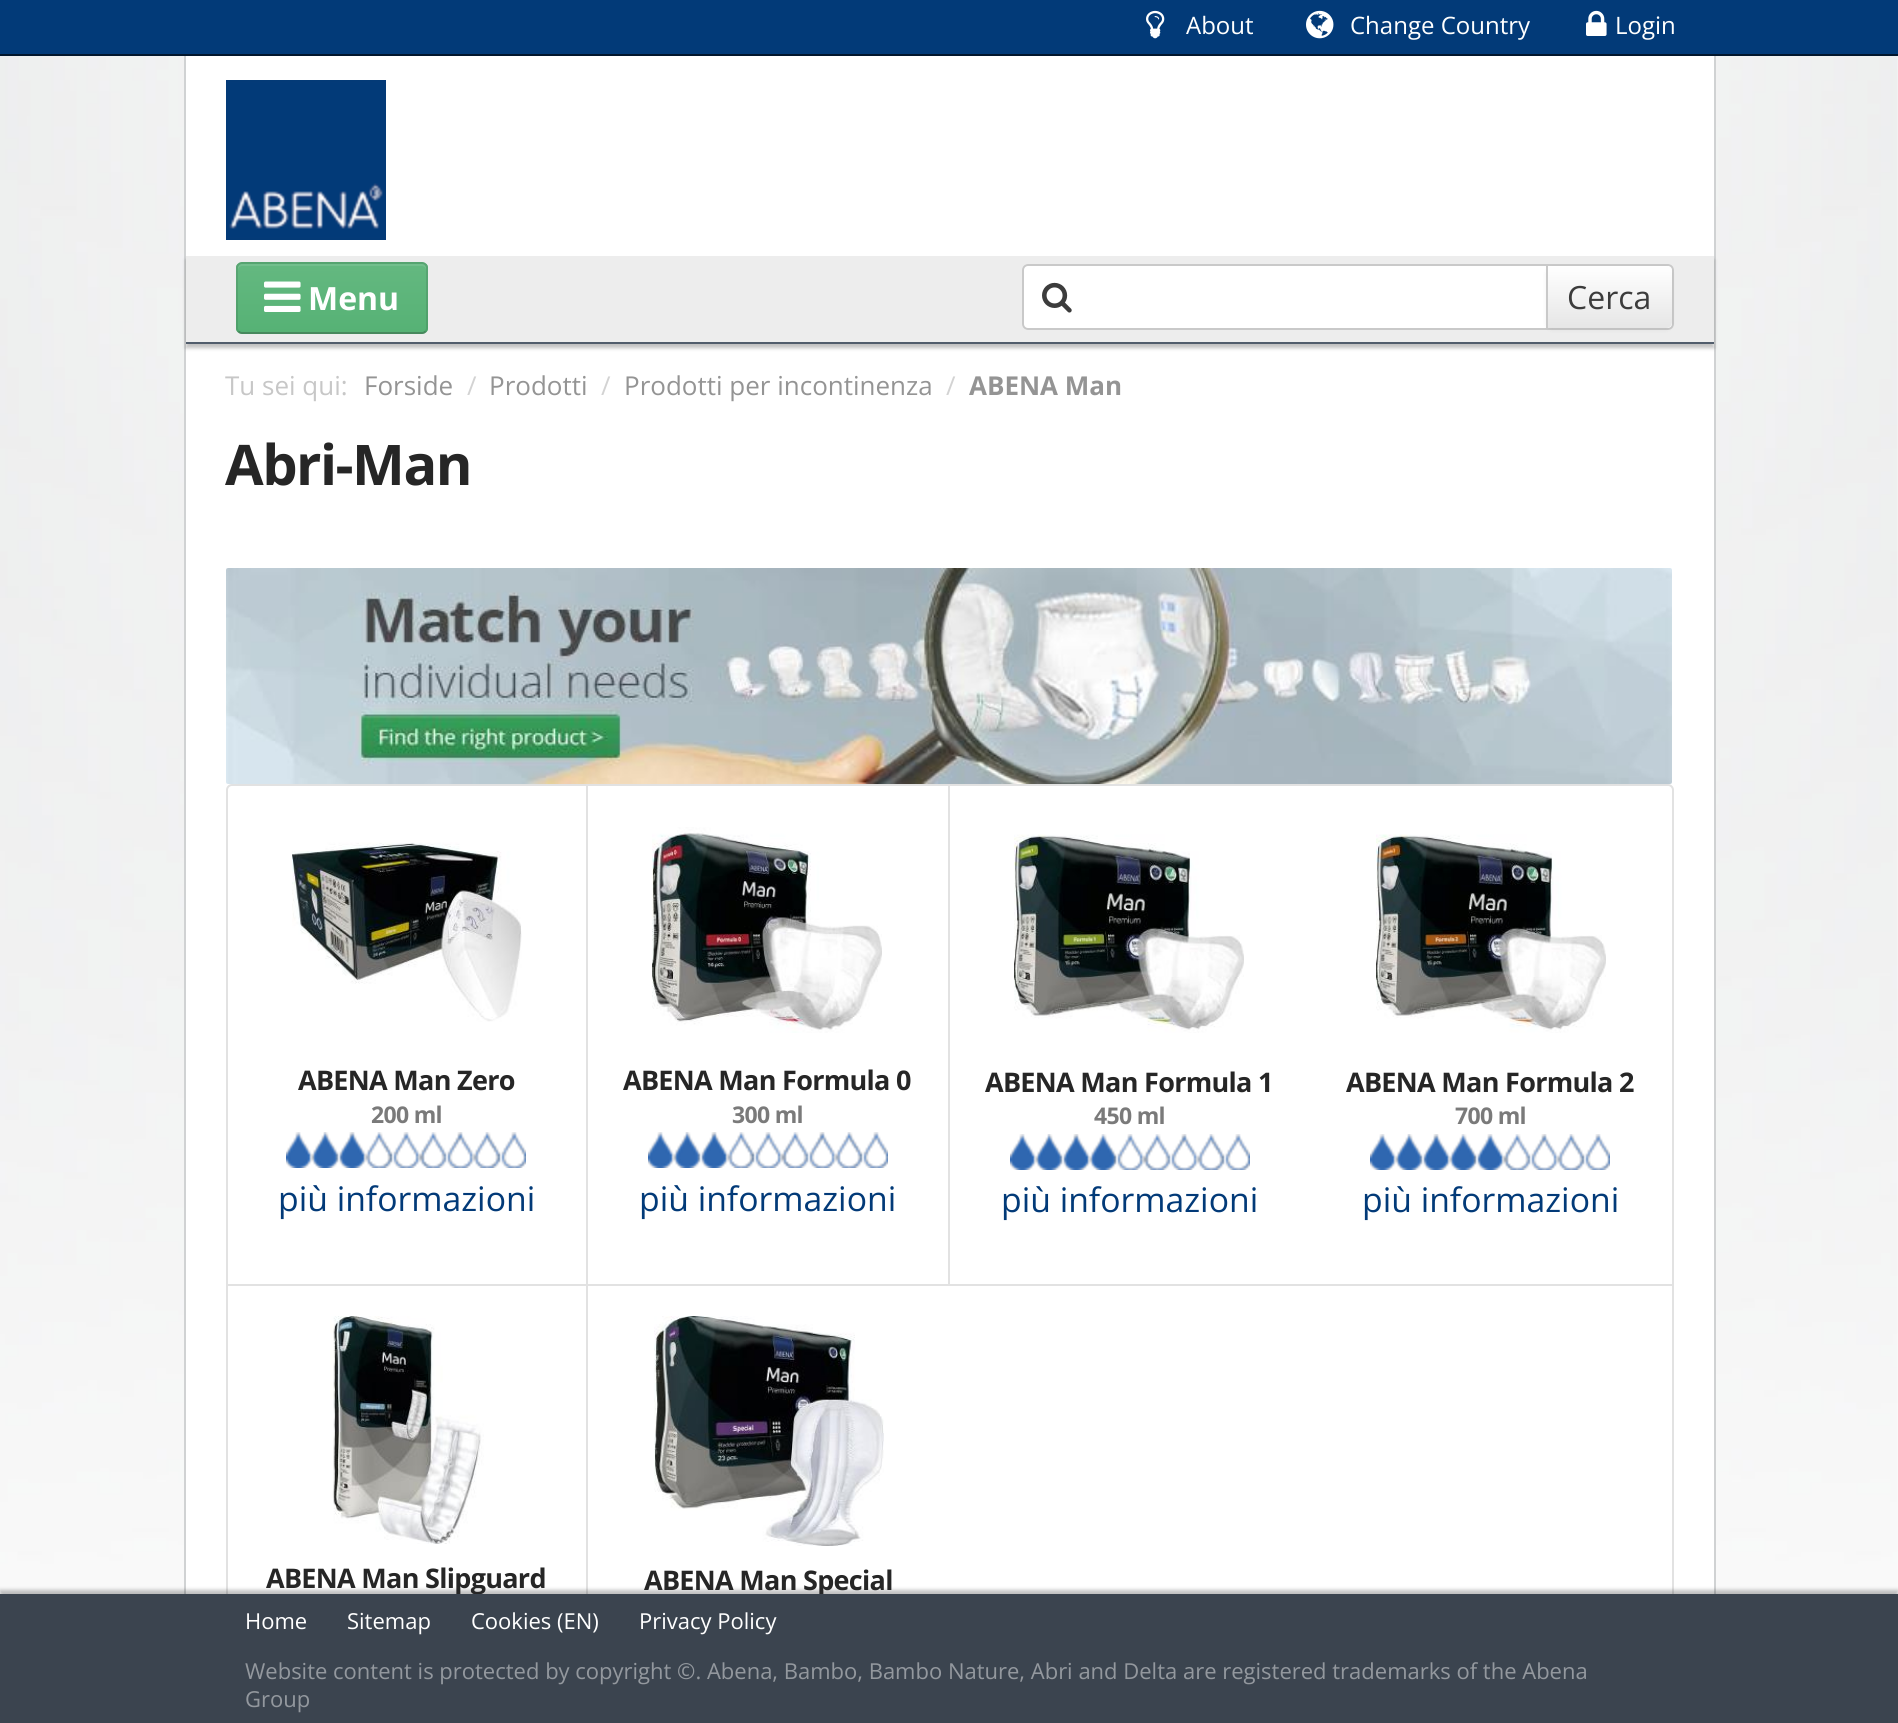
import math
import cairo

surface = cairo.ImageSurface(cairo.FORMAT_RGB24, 1898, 1723)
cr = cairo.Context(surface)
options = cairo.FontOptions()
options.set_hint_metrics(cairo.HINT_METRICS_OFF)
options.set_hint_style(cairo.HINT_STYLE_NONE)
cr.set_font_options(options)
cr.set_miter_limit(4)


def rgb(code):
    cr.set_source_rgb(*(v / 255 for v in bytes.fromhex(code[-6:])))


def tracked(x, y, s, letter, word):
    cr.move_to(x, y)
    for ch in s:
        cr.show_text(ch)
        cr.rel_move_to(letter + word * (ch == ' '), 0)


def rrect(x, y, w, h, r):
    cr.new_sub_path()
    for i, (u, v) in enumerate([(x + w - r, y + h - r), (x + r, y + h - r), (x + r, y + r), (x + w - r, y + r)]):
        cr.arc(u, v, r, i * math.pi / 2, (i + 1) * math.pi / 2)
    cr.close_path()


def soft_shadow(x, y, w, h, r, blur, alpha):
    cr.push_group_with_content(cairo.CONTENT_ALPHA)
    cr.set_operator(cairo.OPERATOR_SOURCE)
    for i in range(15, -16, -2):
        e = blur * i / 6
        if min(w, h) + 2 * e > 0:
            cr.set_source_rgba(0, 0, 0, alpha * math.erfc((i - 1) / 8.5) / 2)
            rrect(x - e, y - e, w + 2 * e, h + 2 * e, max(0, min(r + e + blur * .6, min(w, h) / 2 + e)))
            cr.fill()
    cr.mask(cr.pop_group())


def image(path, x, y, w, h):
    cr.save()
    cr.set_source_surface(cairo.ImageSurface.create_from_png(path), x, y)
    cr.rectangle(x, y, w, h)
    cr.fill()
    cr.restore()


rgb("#ffffff")
cr.paint()
image("img/1.png", 0, 56, 1898, 1538)
rgb("#023a78")
cr.rectangle(0, 0, 1898, 54)
cr.fill()
rgb("#01162d")
cr.rectangle(0, 54, 1898, 2)
cr.fill()
image("img/2.png", 1146, 10, 19, 29)
image("img/3.png", 1306, 10, 28, 29)
image("img/4.png", 1586, 10, 21, 26)
for x, y, w, h, color in [
    (1714, 56, 2, 1538, "#d0d2d3"),
    (184, 56, 2, 1538, "#d0d2d3"),
    (186, 56, 1528, 200, "#ffffff"),
]:
    rgb(color)
    cr.rectangle(x, y, w, h)
    cr.fill()
image("img/5.png", 226, 80, 160, 160)
cr.rectangle(186, 344, 1528, 1250)
cr.fill()
rgb("#000000")
soft_shadow(186, 260, 1528, 88, 0, 2, 0.25)
rgb("#ededed")
cr.rectangle(186, 256, 1528, 86)
cr.fill()
rgb("#515d6c")
cr.rectangle(186, 342, 1528, 2)
cr.fill()
rgb("#5fb67c")
rrect(236, 262, 192, 72, 6)
cr.fill()
cr.save()
rrect(236, 262, 192, 72, 6)
cr.clip()
gradient = cairo.LinearGradient(332, 264, 332, 332)
gradient.add_color_stop_rgba(0, 0.392, 0.722, 0.502, 1)
gradient.add_color_stop_rgba(1, 0.337, 0.698, 0.459, 1)
cr.set_source(gradient)
cr.rectangle(236, 264, 192, 68)
cr.fill()
cr.restore()
rgb("#73bf8d")
cr.new_path()
cr.move_to(242, 266)
cr.line_to(422, 266)
cr.curve_to(424, 266, 426, 268, 426, 270)
cr.line_to(426, 268)
cr.curve_to(426, 266, 424, 264, 422, 264)
cr.line_to(242, 264)
cr.curve_to(240, 264, 238, 266, 238, 268)
cr.line_to(238, 270)
cr.curve_to(238, 268, 240, 266, 242, 266)
cr.close_path()
cr.fill()
cr.new_path()
cr.move_to(425.5, 331.5)
cr.curve_to(424.5, 332.5, 423.5, 333, 422, 333)
cr.line_to(242, 333)
cr.curve_to(240.5, 333, 239.5, 332.5, 238.5, 331.5)
cr.set_source_rgba(0, 0, 0, 0.25)
cr.stroke()
cr.new_path()
cr.move_to(238.5, 331.5)
cr.curve_to(237.5, 330.5, 237, 329.5, 237, 328)
cr.line_to(237, 268)
cr.curve_to(237, 266.5, 237.5, 265.5, 238.5, 264.5)
cr.curve_to(239.5, 263.5, 240.5, 263, 242, 263)
cr.line_to(422, 263)
cr.curve_to(423.5, 263, 424.5, 263.5, 425.5, 264.5)
cr.curve_to(426.5, 265.5, 427, 266.5, 427, 268)
cr.line_to(427, 328)
cr.curve_to(427, 329.5, 426.5, 330.5, 425.5, 331.5)
cr.set_source_rgba(0, 0, 0, 0.1)
cr.stroke()
image("img/6.png", 264, 281, 37, 31)
rgb("#ffffff")
rrect(1022, 264, 652, 66, 6)
cr.fill()
image("img/7.png", 1042, 282, 30, 31)
rrect(1023, 265, 650, 64, 5)
rgb("#c9c9c9")
cr.stroke()
rgb("#000000")
soft_shadow(1546, 268, 126, 62, 6, 2, 0.05)
gradient = cairo.LinearGradient(1610, 266, 1610, 328)
gradient.add_color_stop_rgba(0, 1, 1, 1, 1)
gradient.add_color_stop_rgba(1, 0.902, 0.902, 0.902, 1)
cr.set_source(gradient)
cr.new_path()
cr.move_to(1546, 266)
cr.line_to(1666, 266)
cr.curve_to(1669.5, 266, 1672, 268.5, 1672, 272)
cr.line_to(1672, 322)
cr.curve_to(1672, 325.5, 1669.5, 328, 1666, 328)
cr.line_to(1546, 328)
cr.close_path()
cr.fill()
rgb("#c9c9c9")
cr.rectangle(1546, 266, 2, 62)
cr.fill()
image("img/8.png", 226, 568, 1446, 216)
rrect(227, 785, 1446, 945, 5)
rgb("#e2e2e2")
cr.stroke()
cr.rectangle(586, 786, 2, 500)
cr.fill()
cr.rectangle(228, 1284, 360, 2)
cr.fill()
image("img/9.png", 292, 842, 230, 180)
image("img/10.png", 286, 1132, 240, 36)
cr.rectangle(948, 786, 2, 500)
cr.fill()
cr.rectangle(588, 1284, 1084, 2)
cr.fill()
image("img/11.png", 652, 827, 230, 206)
image("img/10.png", 648, 1132, 240, 36)
image("img/12.png", 1014, 834, 230, 199)
image("img/13.png", 1010, 1134, 240, 36)
image("img/14.png", 1376, 834, 230, 199)
image("img/15.png", 1370, 1134, 240, 36)
cr.rectangle(586, 1284, 2, 310)
cr.fill()
image("img/16.png", 330, 1316, 154, 228)
image("img/17.png", 654, 1316, 230, 230)
rgb("#000000")
soft_shadow(0, 1590, 1898, 130, 0, 2, 0.25)
cr.select_font_face("Open Sans")
cr.set_font_size(24)
rgb("#ffffff")
for x, y, s in [
    (1186, 34, "About"),
    (1350, 34, "Change Country"),
    (1615, 34, "Login"),
]:
    cr.move_to(x, y)
    cr.show_text(s)
cr.select_font_face("Open Sans", cairo.FONT_SLANT_NORMAL, cairo.FONT_WEIGHT_BOLD)
cr.set_font_size(32)
cr.move_to(308, 310)
cr.show_text("Menu")
cr.select_font_face("Open Sans")
rgb("#3c3c3c")
cr.move_to(1567, 309)
cr.show_text("Cerca")
cr.set_font_size(26)
rgb("#c7c7c7")
cr.move_to(225, 395)
cr.show_text("Tu sei qui:")
rgb("#949494")
cr.move_to(364, 395)
cr.show_text("Forside")
rgb("#d3d3d3")
cr.move_to(467, 395)
cr.show_text("/")
rgb("#949494")
cr.move_to(489, 395)
cr.show_text("Prodotti")
rgb("#d3d3d3")
cr.move_to(601, 395)
cr.show_text("/")
rgb("#949494")
cr.move_to(624, 395)
cr.show_text("Prodotti per incontinenza")
rgb("#d3d3d3")
cr.move_to(946, 395)
cr.show_text("/")
cr.select_font_face("Open Sans", cairo.FONT_SLANT_NORMAL, cairo.FONT_WEIGHT_BOLD)
rgb("#949494")
cr.move_to(969, 395)
cr.show_text("ABENA Man")
cr.set_font_size(56)
rgb("#262626")
tracked(225, 485, "Abri-Man", -1.5, 0)
cr.set_font_size(27)
tracked(298, 1090, "ABENA Man Zero", -0.7, 0)
cr.set_font_size(23)
rgb("#7a7a7a")
tracked(371, 1123, "200 ml", -0.7, 0)
cr.select_font_face("Open Sans")
cr.set_font_size(33.75)
rgb("#023a78")
cr.move_to(278, 1211)
cr.show_text("più informazioni")
cr.select_font_face("Open Sans", cairo.FONT_SLANT_NORMAL, cairo.FONT_WEIGHT_BOLD)
cr.set_font_size(27)
rgb("#262626")
tracked(623, 1090, "ABENA Man Formula 0", -0.7, 0)
cr.set_font_size(23)
rgb("#7a7a7a")
tracked(732, 1123, "300 ml", -0.7, 0)
cr.select_font_face("Open Sans")
cr.set_font_size(33.75)
rgb("#023a78")
cr.move_to(639, 1211)
cr.show_text("più informazioni")
cr.select_font_face("Open Sans", cairo.FONT_SLANT_NORMAL, cairo.FONT_WEIGHT_BOLD)
cr.set_font_size(27)
rgb("#262626")
tracked(985, 1092, "ABENA Man Formula 1", -0.7, 0)
cr.set_font_size(23)
rgb("#7a7a7a")
tracked(1094, 1124, "450 ml", -0.7, 0)
cr.select_font_face("Open Sans")
cr.set_font_size(33.75)
rgb("#023a78")
cr.move_to(1001, 1212)
cr.show_text("più informazioni")
cr.select_font_face("Open Sans", cairo.FONT_SLANT_NORMAL, cairo.FONT_WEIGHT_BOLD)
cr.set_font_size(27)
rgb("#262626")
tracked(1346, 1092, "ABENA Man Formula 2", -0.7, 0)
cr.set_font_size(23)
rgb("#7a7a7a")
tracked(1455, 1124, "700 ml", -0.7, 0)
cr.select_font_face("Open Sans")
cr.set_font_size(33.75)
rgb("#023a78")
cr.move_to(1362, 1212)
cr.show_text("più informazioni")
cr.select_font_face("Open Sans", cairo.FONT_SLANT_NORMAL, cairo.FONT_WEIGHT_BOLD)
cr.set_font_size(27)
rgb("#262626")
tracked(266, 1588, "ABENA Man Slipguard", -0.7, 0)
tracked(644, 1590, "ABENA Man Special", -0.7, 0)
rgb("#3b444f")
cr.rectangle(0, 1594, 1898, 129)
cr.fill()
cr.select_font_face("Open Sans")
cr.set_font_size(22)
rgb("#ffffff")
for x, y, s in [
    (245, 1629, "Home"),
    (347, 1629, "Sitemap"),
    (471, 1629, "Cookies (EN)"),
    (639, 1629, "Privacy Policy"),
]:
    cr.move_to(x, y)
    cr.show_text(s)
rgb("#93989e")
cr.move_to(245, 1679)
cr.show_text("Website content is protected by copyright ©. Abena, Bambo, Bambo Nature, Abri and Delta are registered trademarks of the Abena")
cr.move_to(245, 1707)
cr.show_text("Group")
surface.write_to_png("page.png")
